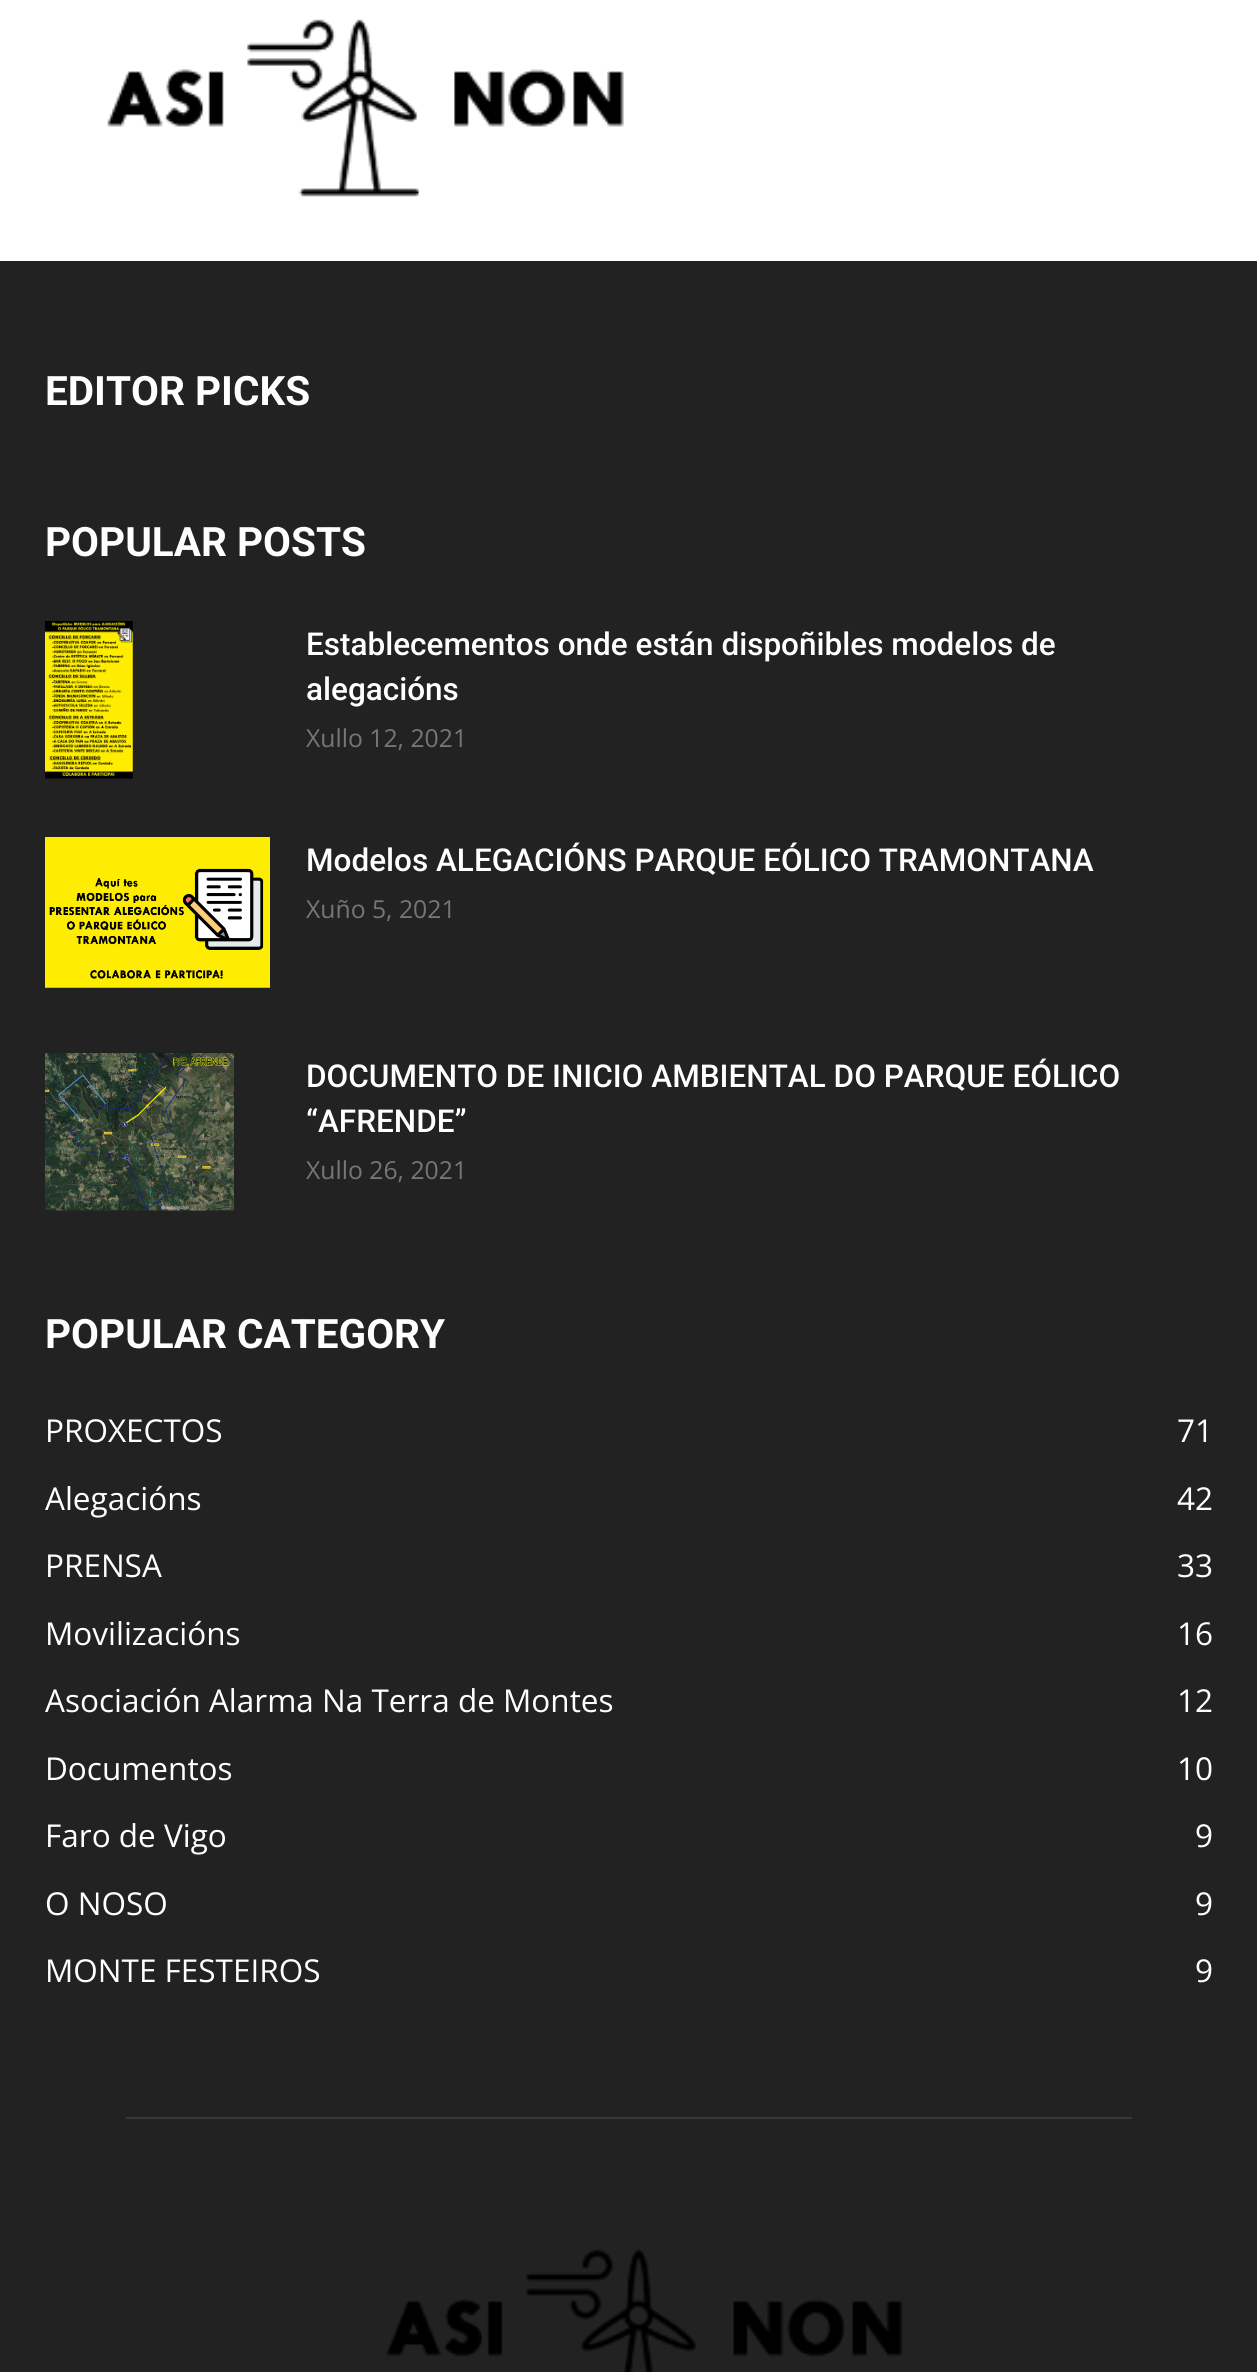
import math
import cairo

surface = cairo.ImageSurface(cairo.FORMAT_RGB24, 1257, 2372)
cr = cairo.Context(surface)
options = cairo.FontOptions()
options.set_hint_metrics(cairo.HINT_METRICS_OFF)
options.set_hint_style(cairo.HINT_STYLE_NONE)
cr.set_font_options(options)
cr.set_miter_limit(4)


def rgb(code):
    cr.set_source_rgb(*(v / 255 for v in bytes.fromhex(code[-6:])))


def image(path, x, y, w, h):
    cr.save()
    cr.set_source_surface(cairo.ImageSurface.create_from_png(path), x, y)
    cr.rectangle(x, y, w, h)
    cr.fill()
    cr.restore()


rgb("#ffffff")
cr.paint()
image("img/1.png", 107, 19, 517, 178)
rgb("#222222")
cr.rectangle(0, 261, 1257, 2111)
cr.fill()
image("img/2.png", 45, 621, 88, 158)
image("img/3.png", 45, 837, 225, 151)
image("img/4.png", 45, 1053, 189, 158)
rgb("#383838")
cr.rectangle(126, 2117, 1006, 2)
cr.fill()
image("img/5.png", 386, 2249, 517, 123)
cr.select_font_face("Roboto", cairo.FONT_SLANT_NORMAL, cairo.FONT_WEIGHT_BOLD)
cr.set_font_size(40.5)
rgb("#ffffff")
cr.move_to(45, 405)
cr.show_text("EDITOR PICKS")
cr.move_to(45, 556)
cr.show_text("POPULAR POSTS")
cr.select_font_face("Roboto Medium")
cr.set_font_size(31.5)
cr.move_to(306, 655)
cr.show_text("Establecementos onde están dispoñibles modelos de")
cr.move_to(306, 700)
cr.show_text("alegacións")
cr.select_font_face("Open Sans")
cr.set_font_size(24.75)
rgb("#767676")
cr.move_to(306, 747)
cr.show_text("Xullo 12, 2021")
cr.select_font_face("Roboto Medium")
cr.set_font_size(31.5)
rgb("#ffffff")
cr.move_to(306, 871)
cr.show_text("Modelos ALEGACIÓNS PARQUE EÓLICO TRAMONTANA")
cr.select_font_face("Open Sans")
cr.set_font_size(24.75)
rgb("#767676")
cr.move_to(306, 918)
cr.show_text("Xuño 5, 2021")
cr.select_font_face("Roboto Medium")
cr.set_font_size(31.5)
rgb("#ffffff")
cr.move_to(306, 1087)
cr.show_text("DOCUMENTO DE INICIO AMBIENTAL DO PARQUE EÓLICO")
cr.move_to(306, 1132)
cr.show_text("“AFRENDE”")
cr.select_font_face("Open Sans")
cr.set_font_size(24.75)
rgb("#767676")
cr.move_to(306, 1179)
cr.show_text("Xullo 26, 2021")
cr.select_font_face("Roboto", cairo.FONT_SLANT_NORMAL, cairo.FONT_WEIGHT_BOLD)
cr.set_font_size(40.5)
rgb("#ffffff")
cr.move_to(45, 1348)
cr.show_text("POPULAR CATEGORY")
cr.select_font_face("Open Sans")
cr.set_font_size(31.5)
for x, y, s in [
    (45, 1442, "PROXECTOS"),
    (1177, 1442, "71"),
    (45, 1510, "Alegacións"),
    (1177, 1510, "42"),
    (45, 1577, "PRENSA"),
    (1177, 1577, "33"),
    (45, 1645, "Movilizacións"),
    (1177, 1645, "16"),
    (45, 1712, "Asociación Alarma Na Terra de Montes"),
    (1177, 1712, "12"),
    (45, 1780, "Documentos"),
    (1177, 1780, "10"),
    (45, 1847, "Faro de Vigo"),
    (1195, 1847, "9"),
    (45, 1915, "O NOSO"),
    (1195, 1915, "9"),
    (45, 1982, "MONTE FESTEIROS"),
    (1195, 1982, "9"),
]:
    cr.move_to(x, y)
    cr.show_text(s)
surface.write_to_png("page.png")
